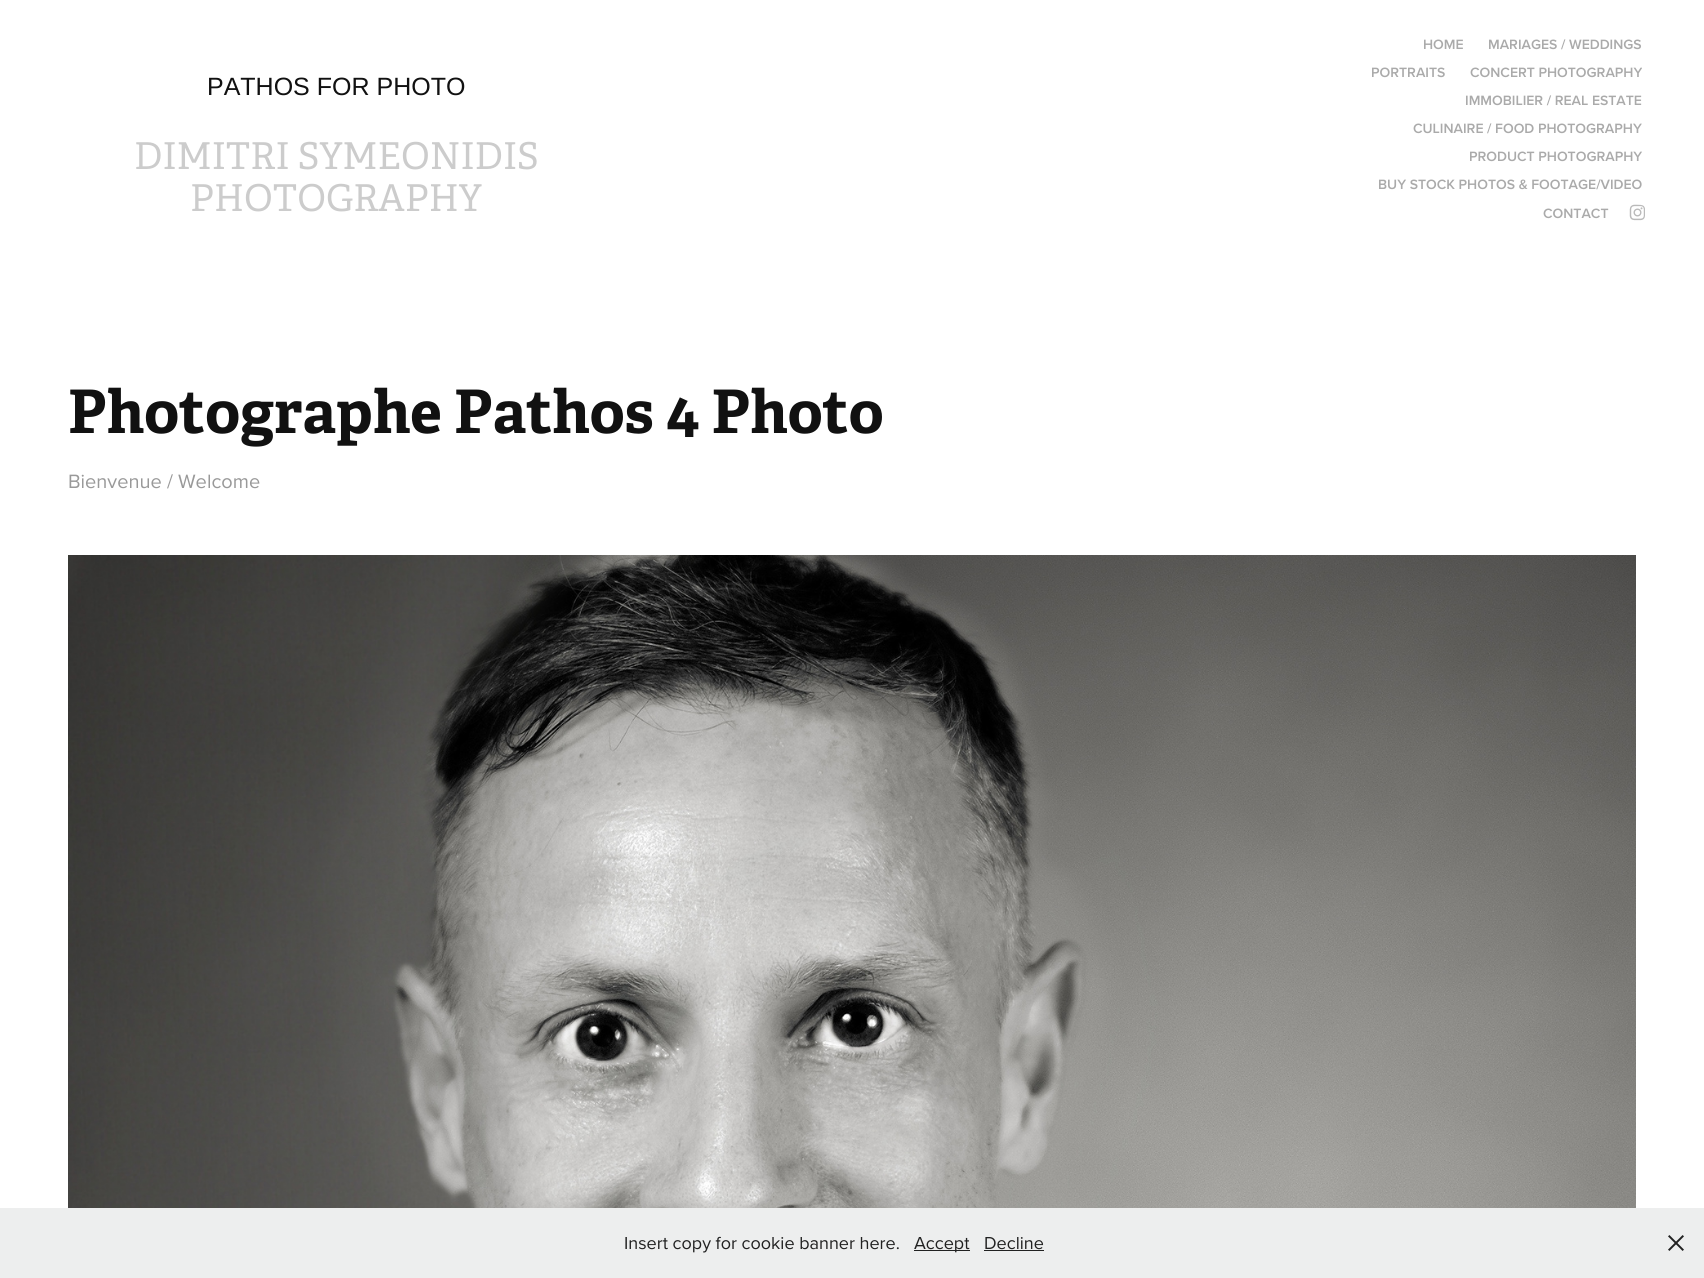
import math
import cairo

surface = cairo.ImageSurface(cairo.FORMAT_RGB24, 1704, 1278)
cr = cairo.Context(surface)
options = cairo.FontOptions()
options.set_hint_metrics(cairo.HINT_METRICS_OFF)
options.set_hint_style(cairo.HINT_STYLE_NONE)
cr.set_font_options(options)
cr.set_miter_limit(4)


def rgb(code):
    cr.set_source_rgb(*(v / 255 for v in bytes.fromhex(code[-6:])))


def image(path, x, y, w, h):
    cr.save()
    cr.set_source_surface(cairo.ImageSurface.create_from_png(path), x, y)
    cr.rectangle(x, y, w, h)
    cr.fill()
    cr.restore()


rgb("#ffffff")
cr.paint()
image("img/1.png", 1629, 204, 16, 17)
image("img/2.png", 68, 555, 1568, 653)
for x, y, w, h, color in [
    (0, 1208, 1704, 70, "#edeeee"),
    (914, 1250, 56, 1, "#212121"),
    (984, 1250, 60, 1, "#212121"),
]:
    rgb(color)
    cr.rectangle(x, y, w, h)
    cr.fill()
image("img/3.png", 1668, 1235, 16, 16)
cr.select_font_face("Liberation Sans")
cr.set_font_size(25)
rgb("#111111")
cr.move_to(207, 95)
cr.show_text("PATHOS FOR PHOTO")
cr.select_font_face("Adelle")
cr.set_font_size(37)
rgb("#cccccc")
cr.move_to(134, 169)
cr.show_text("DIMITRI SYMEONIDIS")
cr.move_to(190, 211)
cr.show_text("PHOTOGRAPHY")
cr.select_font_face("Proxima Nova SemiBold")
cr.set_font_size(14)
rgb("#aaaaaa")
for x, y, s in [
    (1423, 49, "HOME"),
    (1488, 49, "MARIAGES / WEDDINGS"),
    (1371, 77, "PORTRAITS"),
    (1470, 77, "CONCERT PHOTOGRAPHY"),
    (1465, 105, "IMMOBILIER / REAL ESTATE"),
    (1413, 133, "CULINAIRE / FOOD PHOTOGRAPHY"),
    (1469, 161, "PRODUCT PHOTOGRAPHY"),
    (1378, 189, "BUY STOCK PHOTOS & FOOTAGE/VIDEO"),
    (1543, 218, "CONTACT"),
]:
    cr.move_to(x, y)
    cr.show_text(s)
cr.select_font_face("Adelle", cairo.FONT_SLANT_NORMAL, cairo.FONT_WEIGHT_BOLD)
cr.set_font_size(60)
rgb("#111111")
cr.move_to(68, 433)
cr.show_text("Photographe Pathos 4 Photo")
cr.select_font_face("Proxima Nova")
cr.set_font_size(20)
rgb("#999999")
cr.move_to(68, 488)
cr.show_text("Bienvenue / Welcome")
cr.set_font_size(18)
rgb("#212121")
for x, y, s in [
    (624, 1249, "Insert copy for cookie banner here."),
    (914, 1249, "Accept"),
    (984, 1249, "Decline"),
]:
    cr.move_to(x, y)
    cr.show_text(s)
surface.write_to_png("page.png")
